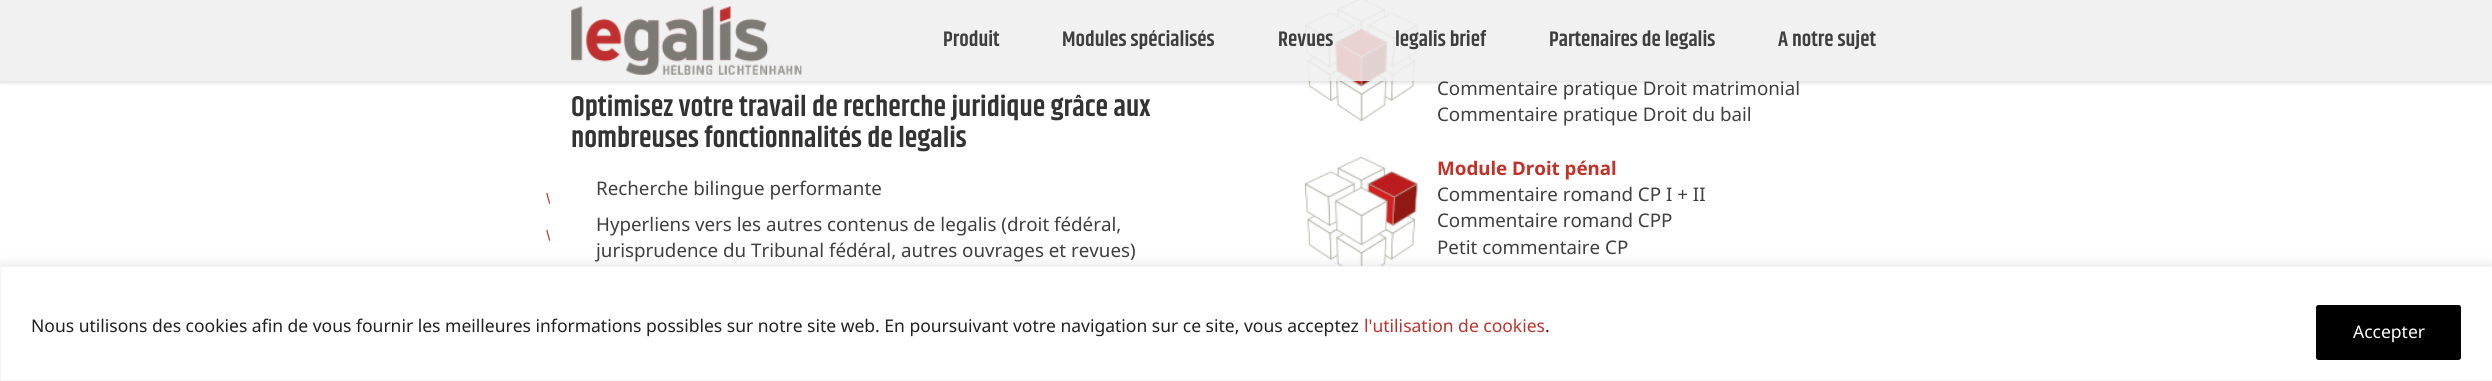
import math
import cairo

surface = cairo.ImageSurface(cairo.FORMAT_RGB24, 2492, 381)
cr = cairo.Context(surface)
options = cairo.FontOptions()
options.set_hint_metrics(cairo.HINT_METRICS_OFF)
options.set_hint_style(cairo.HINT_STYLE_NONE)
cr.set_font_options(options)
cr.set_miter_limit(4)


def rgb(code):
    cr.set_source_rgb(*(v / 255 for v in bytes.fromhex(code[-6:])))


def tracked(x, y, s, letter, word):
    cr.move_to(x, y)
    for ch in s:
        cr.show_text(ch)
        cr.rel_move_to(letter + word * (ch == ' '), 0)


def rrect(x, y, w, h, r):
    cr.new_sub_path()
    for i, (u, v) in enumerate([(x + w - r, y + h - r), (x + r, y + h - r), (x + r, y + r), (x + w - r, y + r)]):
        cr.arc(u, v, r, i * math.pi / 2, (i + 1) * math.pi / 2)
    cr.close_path()


def soft_shadow(x, y, w, h, r, blur, alpha):
    cr.push_group_with_content(cairo.CONTENT_ALPHA)
    cr.set_operator(cairo.OPERATOR_SOURCE)
    for i in range(15, -16, -2):
        e = blur * i / 6
        if min(w, h) + 2 * e > 0:
            cr.set_source_rgba(0, 0, 0, alpha * math.erfc((i - 1) / 8.5) / 2)
            rrect(x - e, y - e, w + 2 * e, h + 2 * e, max(0, min(r + e + blur * .6, min(w, h) / 2 + e)))
            cr.fill()
    cr.mask(cr.pop_group())


def image(path, x, y, w, h):
    cr.save()
    cr.set_source_surface(cairo.ImageSurface.create_from_png(path), x, y)
    cr.rectangle(x, y, w, h)
    cr.fill()
    cr.restore()


rgb("#ffffff")
cr.paint()
image("img/2.png", 1305, 0, 113, 121)
cr.save()
cr.rectangle(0, 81, 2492, 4)
cr.clip()
rgb("#000000")
soft_shadow(0, 1, 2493, 82, 0, 2, 0.12)
cr.restore()
image("img/3.png", 1305, 156, 113, 110)
rgb("#acabab")
soft_shadow(0, 265, 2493, 115, 0, 6, 0.3)
rgb("#ffffff")
cr.rectangle(0.5, 266.5, 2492, 114)
cr.fill_preserve()
rgb("#f4f4f4")
cr.set_line_width(1)
cr.stroke()
rgb("#000000")
rrect(2317.5, 306.5, 142, 52, 1)
cr.fill_preserve()
cr.set_line_width(3)
cr.stroke()
cr.select_font_face("Khand SemiBold")
cr.set_font_size(28.75)
rgb("#333333")
cr.move_to(571, 116)
cr.show_text("Optimisez votre travail de recherche juridique grâce aux")
cr.move_to(571, 147)
cr.show_text("nombreuses fonctionnalités de legalis")
cr.select_font_face("Noto Sans", cairo.FONT_SLANT_NORMAL, cairo.FONT_WEIGHT_BOLD)
cr.set_font_size(11.25)
rgb("#c1322a")
cr.save()
cr.translate(546, 202)
cr.rotate(-15 * math.pi / 180)
tracked(0, 0, "|", 69, 0)
cr.restore()
cr.select_font_face("Noto Sans")
cr.set_font_size(18.75)
rgb("#3f3f3f")
cr.move_to(596, 195)
cr.show_text("Recherche bilingue performante")
cr.select_font_face("Noto Sans", cairo.FONT_SLANT_NORMAL, cairo.FONT_WEIGHT_BOLD)
cr.set_font_size(11.25)
rgb("#c1322a")
cr.save()
cr.translate(546, 239)
cr.rotate(-15 * math.pi / 180)
tracked(0, 0, "|", 69, 0)
cr.restore()
cr.select_font_face("Noto Sans")
cr.set_font_size(18.75)
rgb("#3f3f3f")
for x, y, s in [
    (596, 231, "Hyperliens vers les autres contenus de legalis (droit fédéral,"),
    (596, 257, "jurisprudence du Tribunal fédéral, autres ouvrages et revues)"),
    (1437, 95, "Commentaire pratique Droit matrimonial"),
]:
    cr.move_to(x, y)
    cr.show_text(s)
cr.set_source_rgba(0.937, 0.937, 0.937, 0.86)
cr.rectangle(0, 0, 2492, 81)
cr.fill()
cr.select_font_face("Khand SemiBold")
cr.set_font_size(21.25)
rgb("#3f3f3f")
for x, y, s in [
    (1778, 46, "A notre sujet"),
    (1549, 46, "Partenaires de legalis"),
    (1395, 46, "legalis brief"),
    (1278, 46, "Revues"),
    (1062, 46, "Modules spécialisés"),
    (943, 46, "Produit"),
]:
    cr.move_to(x, y)
    cr.show_text(s)
image("img/1.png", 571, 6, 231, 69)
cr.select_font_face("Noto Sans")
cr.set_font_size(18.75)
cr.move_to(1437, 121)
cr.show_text("Commentaire pratique Droit du bail")
cr.select_font_face("Noto Sans", cairo.FONT_SLANT_NORMAL, cairo.FONT_WEIGHT_BOLD)
rgb("#c1322a")
cr.move_to(1437, 175)
cr.show_text("Module Droit pénal")
cr.select_font_face("Noto Sans")
rgb("#3f3f3f")
for x, y, s in [
    (1437, 201, "Commentaire romand CP I + II"),
    (1437, 227, "Commentaire romand CPP"),
    (1437, 254, "Petit commentaire CP"),
]:
    cr.move_to(x, y)
    cr.show_text(s)
cr.set_font_size(17.5)
rgb("#212121")
cr.move_to(31, 332)
cr.show_text("Nous utilisons des cookies afin de vous fournir les meilleures informations possibles sur notre site web. En poursuivant votre navigation sur ce site, vous acceptez")
rgb("#c1322a")
cr.move_to(1364, 332)
cr.show_text("l'utilisation de cookies")
rgb("#212121")
cr.move_to(1545, 332)
cr.show_text(".")
rgb("#ffffff")
cr.move_to(2353, 338)
cr.show_text("Accepter")
surface.write_to_png("page.png")
